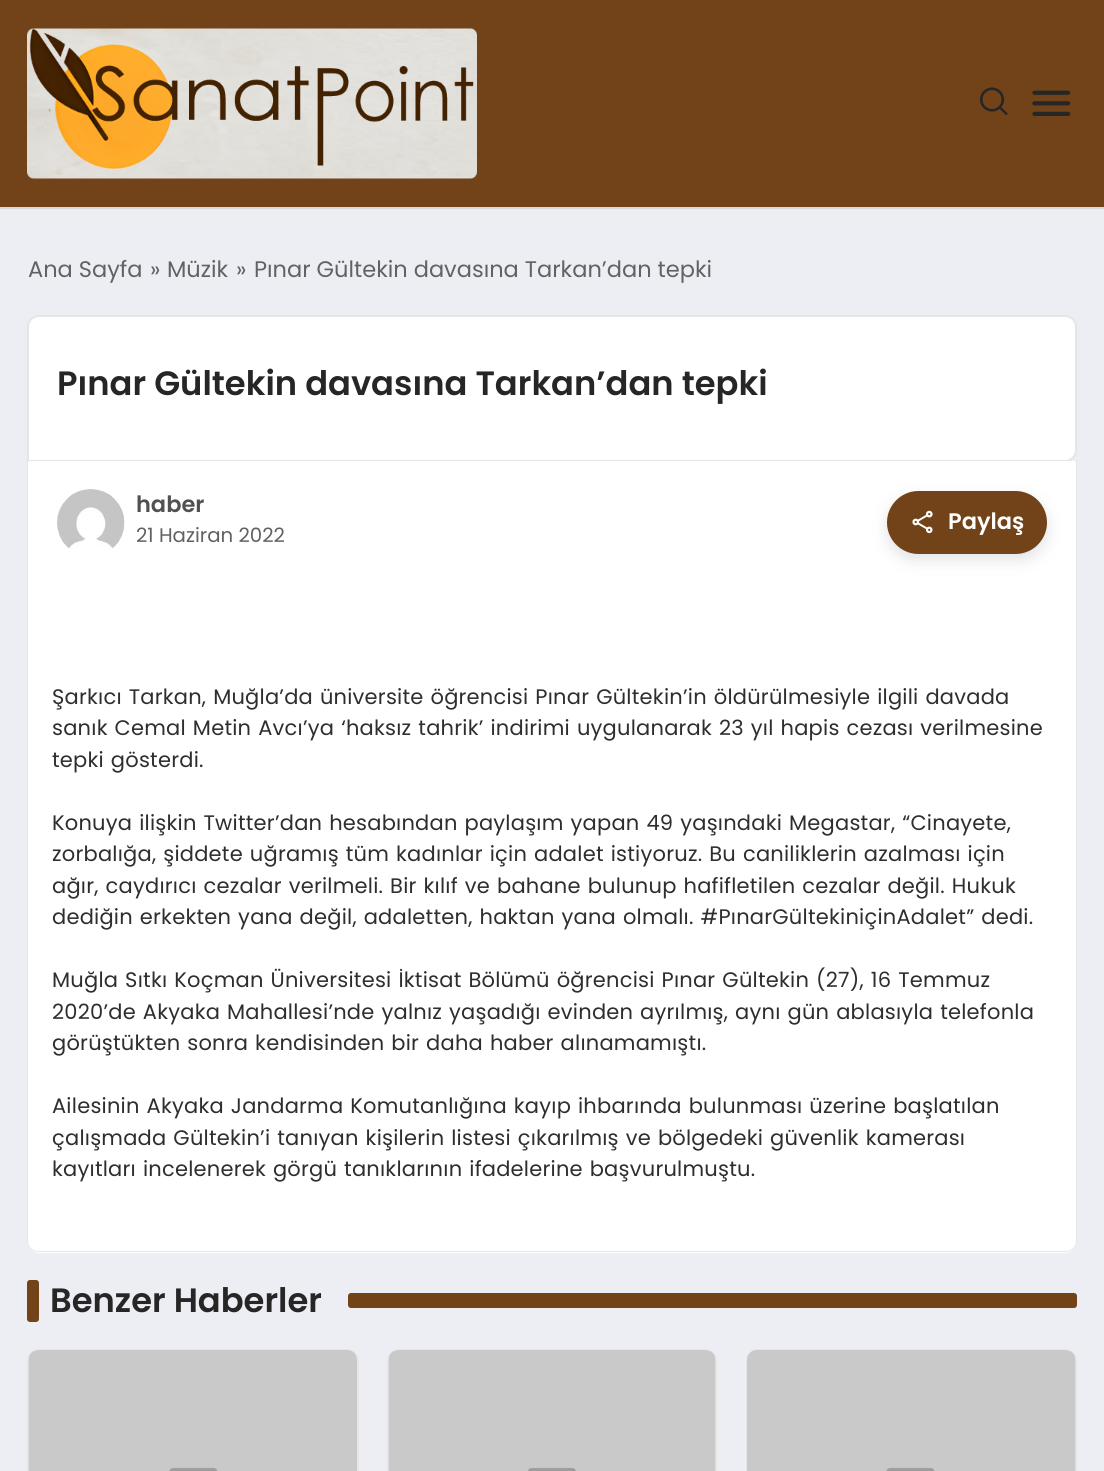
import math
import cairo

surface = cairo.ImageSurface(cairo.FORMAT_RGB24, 1104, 1471)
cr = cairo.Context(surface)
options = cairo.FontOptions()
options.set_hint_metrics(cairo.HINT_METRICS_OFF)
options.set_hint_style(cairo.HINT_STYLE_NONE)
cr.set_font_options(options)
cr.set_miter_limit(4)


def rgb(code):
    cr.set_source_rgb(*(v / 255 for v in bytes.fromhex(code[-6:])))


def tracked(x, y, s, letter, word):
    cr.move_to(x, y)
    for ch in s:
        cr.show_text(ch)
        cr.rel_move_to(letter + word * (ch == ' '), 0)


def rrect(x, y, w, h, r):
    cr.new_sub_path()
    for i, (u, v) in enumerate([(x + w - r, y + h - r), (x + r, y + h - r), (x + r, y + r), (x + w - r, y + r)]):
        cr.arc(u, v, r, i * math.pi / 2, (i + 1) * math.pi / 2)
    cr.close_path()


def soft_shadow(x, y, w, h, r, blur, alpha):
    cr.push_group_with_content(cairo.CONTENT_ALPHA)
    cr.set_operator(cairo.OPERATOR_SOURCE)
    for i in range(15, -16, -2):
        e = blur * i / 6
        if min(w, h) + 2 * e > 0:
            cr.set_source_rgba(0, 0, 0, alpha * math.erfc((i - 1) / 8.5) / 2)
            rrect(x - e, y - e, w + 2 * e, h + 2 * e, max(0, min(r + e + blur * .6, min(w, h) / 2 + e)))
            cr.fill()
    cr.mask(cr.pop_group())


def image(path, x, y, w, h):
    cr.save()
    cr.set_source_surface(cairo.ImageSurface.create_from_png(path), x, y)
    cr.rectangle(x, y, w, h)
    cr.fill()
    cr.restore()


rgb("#ededf4")
cr.paint()
rgb("#724318")
cr.rectangle(0, 0, 1104, 207)
cr.fill()
image("img/1.png", 27, 28, 450, 151)
image("img/2.png", 980, 87, 28, 28)
image("img/3.png", 1032, 90, 39, 26)
rgb("#d9d9d9")
cr.rectangle(0, 207, 1104, 2)
cr.fill()
rgb("#ffffff")
cr.new_path()
cr.move_to(39, 315)
cr.line_to(1065, 315)
cr.curve_to(1071.5, 315, 1077, 320.5, 1077, 327)
cr.line_to(1077, 450)
cr.curve_to(1077, 456.5, 1071.5, 462, 1065, 462)
cr.line_to(27, 462)
cr.line_to(27, 327)
cr.curve_to(27, 320.5, 32.5, 315, 39, 315)
cr.close_path()
cr.fill()
cr.new_path()
cr.move_to(39, 316)
cr.line_to(1065, 316)
cr.curve_to(1071, 316, 1076, 321, 1076, 327)
cr.line_to(1076, 450)
cr.curve_to(1076, 456, 1071, 461, 1065, 461)
cr.line_to(28, 461)
cr.line_to(28, 327)
cr.curve_to(28, 321, 33, 316, 39, 316)
cr.close_path()
cr.set_source_rgba(0, 0, 0, 0.1)
cr.stroke()
rgb("#ffffff")
cr.new_path()
cr.move_to(28.5, 461)
cr.line_to(1075.5, 461)
cr.curve_to(1076.5, 461, 1077, 461.5, 1077, 462.5)
cr.line_to(1077, 1241)
cr.curve_to(1077, 1247.5, 1071.5, 1253, 1065, 1253)
cr.line_to(39, 1253)
cr.curve_to(32.5, 1253, 27, 1247.5, 27, 1241)
cr.line_to(27, 462.5)
cr.curve_to(27, 461.5, 27.5, 461, 28.5, 461)
cr.close_path()
cr.fill()
cr.set_source_rgba(0, 0, 0, 0.1)
cr.set_fill_rule(cairo.FILL_RULE_EVEN_ODD)
cr.new_path()
cr.move_to(28, 460)
cr.line_to(1076, 460)
cr.curve_to(1076, 460, 1077, 461, 1077, 462)
cr.line_to(1077, 1241)
cr.curve_to(1077, 1247, 1072, 1252, 1066, 1252)
cr.line_to(38, 1252)
cr.curve_to(32, 1252, 27, 1247, 27, 1241)
cr.line_to(27, 462)
cr.curve_to(27, 461, 28, 460, 28, 460)
cr.close_path()
cr.move_to(28, 460)
cr.line_to(1076, 460)
cr.line_to(1076, 1241)
cr.curve_to(1076, 1247, 1071, 1251, 1066, 1251)
cr.line_to(38, 1251)
cr.curve_to(33, 1251, 28, 1247, 28, 1241)
cr.close_path()
cr.fill()
image("img/4.png", 57, 489, 68, 60)
rgb("#6b7280")
soft_shadow(887, 497, 160, 63, 31.5, 7.5, 0.2)
rgb("#724318")
rrect(887, 491, 160, 63, 31.5)
cr.fill()
image("img/5.png", 912, 510, 21, 24)
rrect(27, 1280, 12, 42, 3)
cr.fill()
rrect(348, 1293, 729, 15, 3)
cr.fill()
rgb("#ffffff")
rrect(27, 1349, 332, 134, 12)
cr.fill()
rrect(28, 1350, 330, 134, 11)
cr.set_source_rgba(0, 0, 0, 0.1)
cr.stroke()
image("img/6.png", 28, 1350, 329, 121)
rgb("#ffffff")
rrect(387, 1349, 330, 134, 12)
cr.fill()
rrect(388, 1350, 328, 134, 11)
cr.set_source_rgba(0, 0, 0, 0.1)
cr.stroke()
image("img/7.png", 388, 1350, 328, 121)
rgb("#ffffff")
rrect(746, 1349, 331, 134, 12)
cr.fill()
rrect(747, 1350, 329, 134, 11)
cr.set_source_rgba(0, 0, 0, 0.1)
cr.stroke()
image("img/8.png", 747, 1350, 329, 121)
cr.select_font_face("Poppins")
cr.set_font_size(22.5)
rgb("#626264")
for x, y, s in [
    (28, 277, "Ana Sayfa"),
    (150, 277, "»"),
    (167, 277, "Müzik"),
    (236, 277, "»"),
    (254, 277, "Pınar Gültekin davasına Tarkan’dan tepki"),
]:
    cr.move_to(x, y)
    cr.show_text(s)
cr.select_font_face("Poppins SemiBold")
cr.set_font_size(33.75)
rgb("#262626")
cr.move_to(57, 395)
cr.show_text("Pınar Gültekin davasına Tarkan’dan tepki")
cr.set_font_size(22.5)
rgb("#515151")
cr.move_to(136, 512)
cr.show_text("haber")
cr.select_font_face("Poppins")
cr.set_font_size(19.75)
rgb("#626264")
cr.move_to(136, 542)
cr.show_text("21 Haziran 2022")
cr.select_font_face("Poppins SemiBold")
cr.set_font_size(22.5)
rgb("#ffffff")
cr.move_to(948, 529)
cr.show_text("Paylaş")
cr.select_font_face("Poppins")
cr.set_font_size(21)
rgb("#2e2e2e")
for x, y, s in [
    (52, 704, "Şarkıcı Tarkan, Muğla’da üniversite öğrencisi Pınar Gültekin’in öldürülmesiyle ilgili davada"),
    (52, 735, "sanık Cemal Metin Avcı’ya ‘haksız tahrik’ indirimi uygulanarak 23 yıl hapis cezası verilmesine"),
    (52, 767, "tepki gösterdi."),
    (52, 830, "Konuya ilişkin Twitter’dan hesabından paylaşım yapan 49 yaşındaki Megastar, “Cinayete,"),
    (52, 861, "zorbalığa, şiddete uğramış tüm kadınlar için adalet istiyoruz. Bu caniliklerin azalması için"),
    (52, 893, "ağır, caydırıcı cezalar verilmeli. Bir kılıf ve bahane bulunup hafifletilen cezalar değil. Hukuk"),
    (52, 924, "dediğin erkekten yana değil, adaletten, haktan yana olmalı. #PınarGültekiniçinAdalet” dedi."),
    (52, 987, "Muğla Sıtkı Koçman Üniversitesi İktisat Bölümü öğrencisi Pınar Gültekin (27), 16 Temmuz"),
    (52, 1019, "2020’de Akyaka Mahallesi’nde yalnız yaşadığı evinden ayrılmış, aynı gün ablasıyla telefonla"),
    (52, 1050, "görüştükten sonra kendisinden bir daha haber alınamamıştı."),
    (52, 1113, "Ailesinin Akyaka Jandarma Komutanlığına kayıp ihbarında bulunması üzerine başlatılan"),
    (52, 1145, "çalışmada Gültekin’i tanıyan kişilerin listesi çıkarılmış ve bölgedeki güvenlik kamerası"),
    (52, 1176, "kayıtları incelenerek görgü tanıklarının ifadelerine başvurulmuştu."),
]:
    tracked(x, y, s, 0.22, 1.1)
cr.select_font_face("Poppins SemiBold")
cr.set_font_size(33.75)
rgb("#262626")
cr.move_to(50, 1312)
cr.show_text("Benzer Haberler")
surface.write_to_png("page.png")
